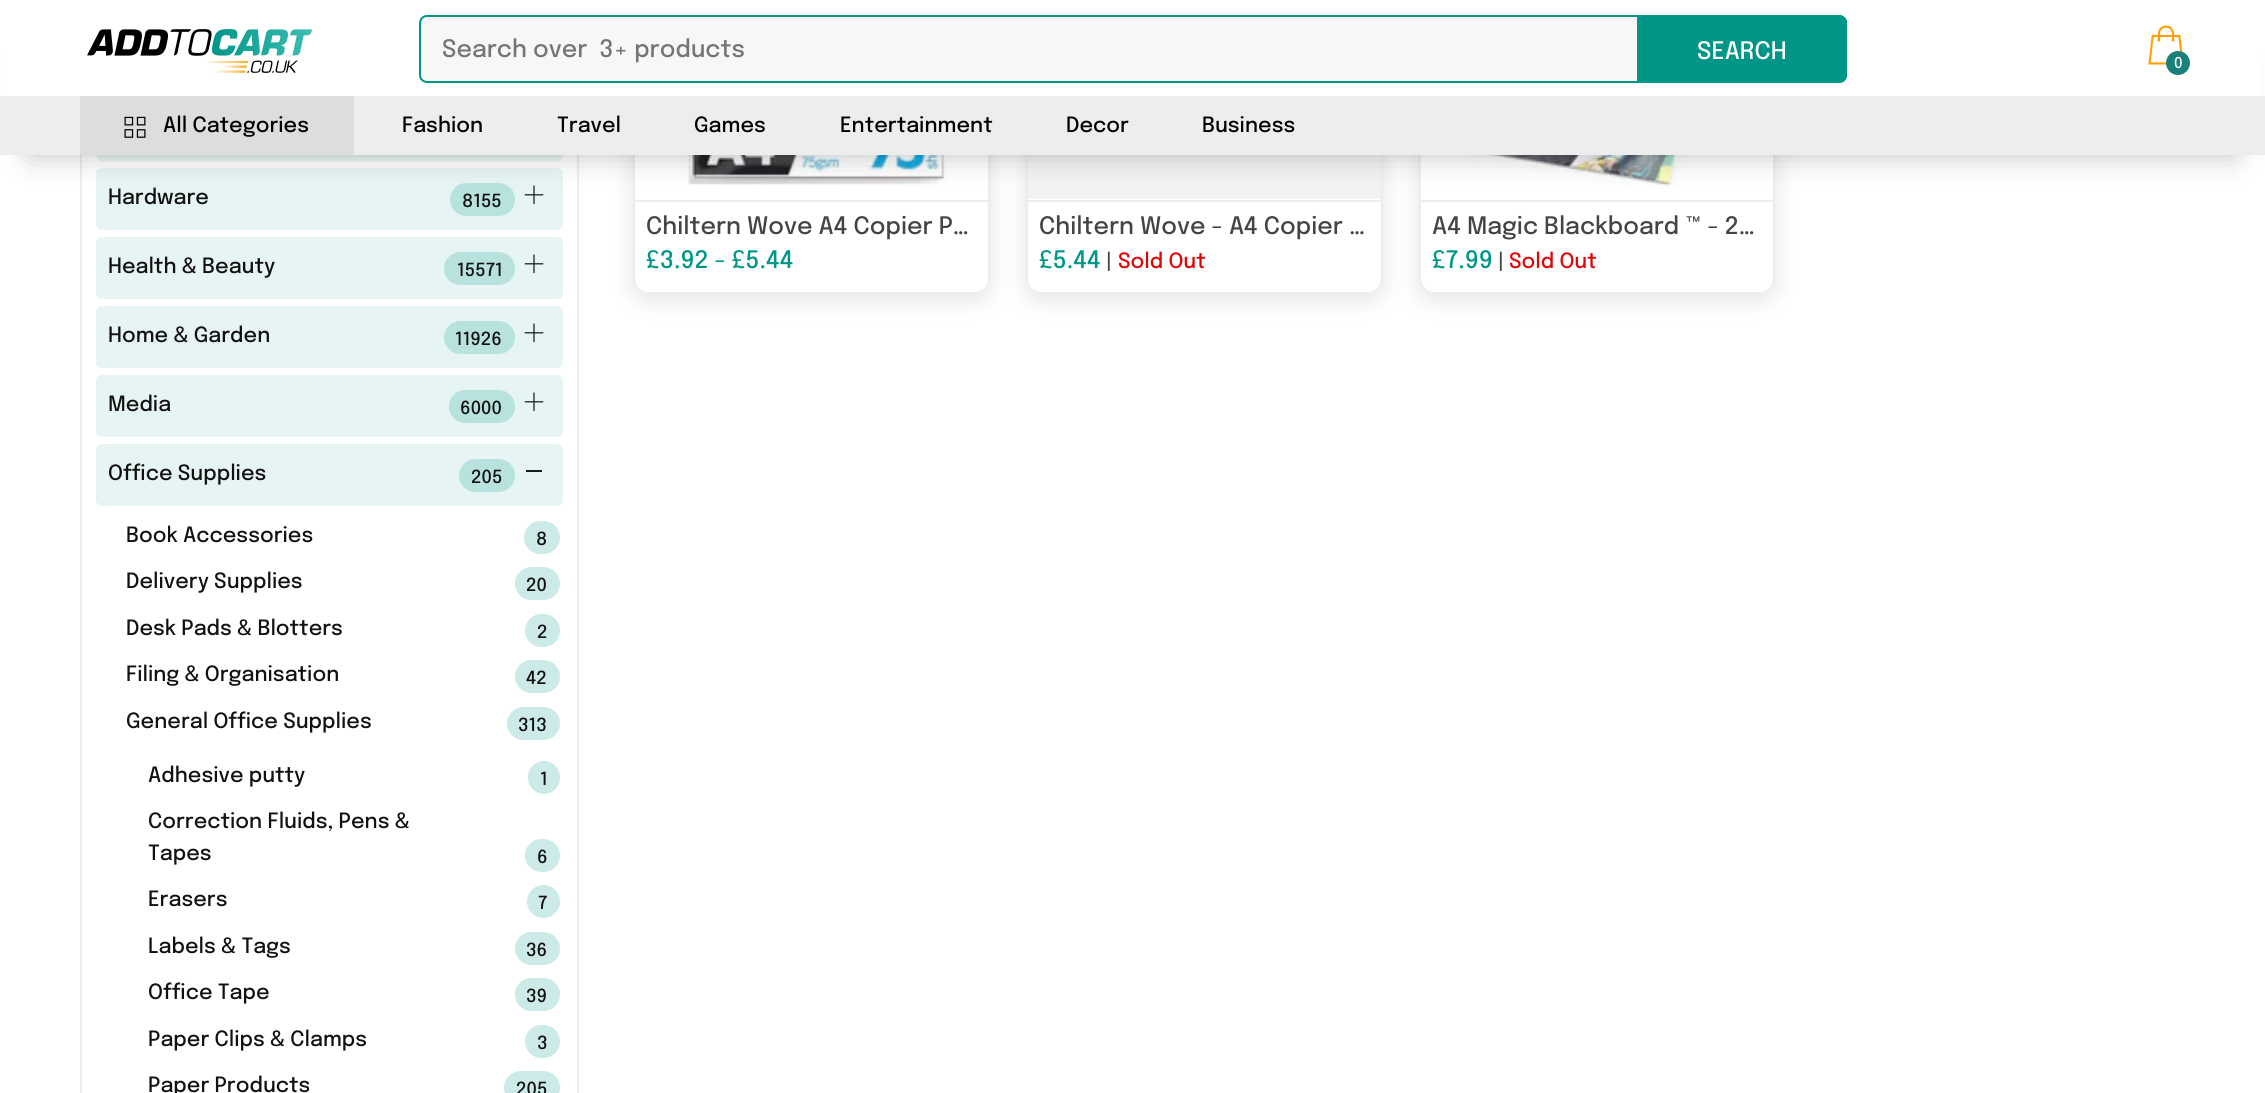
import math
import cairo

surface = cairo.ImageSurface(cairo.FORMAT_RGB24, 2265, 1093)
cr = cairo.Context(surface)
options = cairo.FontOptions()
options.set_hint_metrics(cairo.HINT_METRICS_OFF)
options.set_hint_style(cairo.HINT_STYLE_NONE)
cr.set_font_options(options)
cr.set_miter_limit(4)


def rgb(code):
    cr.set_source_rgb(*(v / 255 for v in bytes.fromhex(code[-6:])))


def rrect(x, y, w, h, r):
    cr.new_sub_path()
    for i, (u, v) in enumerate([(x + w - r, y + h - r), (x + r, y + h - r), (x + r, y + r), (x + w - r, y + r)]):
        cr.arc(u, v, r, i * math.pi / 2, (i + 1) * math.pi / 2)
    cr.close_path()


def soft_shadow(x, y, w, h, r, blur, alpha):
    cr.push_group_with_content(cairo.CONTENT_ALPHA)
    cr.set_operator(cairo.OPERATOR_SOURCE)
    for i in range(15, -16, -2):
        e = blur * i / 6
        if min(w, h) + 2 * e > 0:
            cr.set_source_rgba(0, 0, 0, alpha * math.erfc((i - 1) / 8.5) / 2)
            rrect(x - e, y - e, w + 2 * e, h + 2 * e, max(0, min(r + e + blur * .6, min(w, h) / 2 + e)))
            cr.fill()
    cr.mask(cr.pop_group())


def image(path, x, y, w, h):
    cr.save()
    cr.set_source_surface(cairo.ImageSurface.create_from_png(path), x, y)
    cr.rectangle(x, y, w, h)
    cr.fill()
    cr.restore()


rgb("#ffffff")
cr.paint()
rgb("#cceae7")
rrect(450, 183, 65, 33, 16.5)
cr.fill()
image("img/4.png", 524, 185, 20, 20)
rrect(444, 252, 71, 33, 16.5)
cr.fill()
image("img/4.png", 524, 254, 20, 20)
rrect(444, 321, 71, 33, 16.5)
cr.fill()
image("img/4.png", 524, 323, 20, 20)
rrect(449, 390, 66, 33, 16.5)
cr.fill()
image("img/4.png", 524, 392, 20, 20)
rrect(459, 459, 56, 33, 16.5)
cr.fill()
rgb("#111111")
cr.rectangle(526, 470, 16, 2)
cr.fill()
rgb("#cceae7")
rrect(524, 521, 36, 33, 16.5)
cr.fill()
rrect(515, 567, 45, 33, 16.5)
cr.fill()
rrect(525, 614, 35, 33, 16.5)
cr.fill()
rrect(515, 660, 45, 33, 16.5)
cr.fill()
rrect(507, 707, 53, 33, 16.5)
cr.fill()
rrect(528, 761, 32, 33, 16)
cr.fill()
rrect(525, 839, 35, 33, 16.5)
cr.fill()
cr.arc(543.5, 901.5, 16.5, 0, 2 * math.pi)
cr.fill()
rrect(515, 932, 45, 33, 16.5)
cr.fill()
rrect(515, 978, 45, 33, 16.5)
cr.fill()
rrect(525, 1025, 35, 33, 16.5)
cr.fill()
rrect(504, 1071, 56, 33, 16.5)
cr.fill()
cr.rectangle(81, -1, 497, 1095)
rgb("#ededed")
cr.stroke()
cr.set_source_rgba(0, 0.588, 0.529, 0.1)
rrect(96, 99, 467, 62, 6)
cr.fill()
rrect(96, 168, 467, 62, 6)
cr.fill()
cr.save()
cr.set_fill_rule(cairo.FILL_RULE_EVEN_ODD)
cr.new_path()
cr.move_to(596, 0)
cr.line_to(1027, 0)
cr.line_to(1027, 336)
cr.line_to(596, 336)
cr.close_path()
cr.move_to(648, -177)
cr.line_to(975, -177)
cr.curve_to(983.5, -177, 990, -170.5, 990, -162)
cr.line_to(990, 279)
cr.curve_to(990, 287.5, 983.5, 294, 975, 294)
cr.line_to(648, 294)
cr.curve_to(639.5, 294, 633, 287.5, 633, 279)
cr.line_to(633, -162)
cr.curve_to(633, -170.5, 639.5, -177, 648, -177)
cr.close_path()
cr.clip()
rgb("#000000")
soft_shadow(633, -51, 357, 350, 15, 12, 0.11)
cr.restore()
rrect(634, -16, 355, 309, 14)
rgb("#ededed")
cr.stroke()
cr.rectangle(635, 200, 354, 2)
cr.fill()
image("img/5.png", 686, 155, 260, 30)
cr.save()
cr.set_fill_rule(cairo.FILL_RULE_EVEN_ODD)
cr.new_path()
cr.move_to(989, 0)
cr.line_to(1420, 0)
cr.line_to(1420, 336)
cr.line_to(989, 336)
cr.close_path()
cr.move_to(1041, -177)
cr.line_to(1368, -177)
cr.curve_to(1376.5, -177, 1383, -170.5, 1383, -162)
cr.line_to(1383, 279)
cr.curve_to(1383, 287.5, 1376.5, 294, 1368, 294)
cr.line_to(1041, 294)
cr.curve_to(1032.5, 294, 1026, 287.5, 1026, 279)
cr.line_to(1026, -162)
cr.curve_to(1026, -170.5, 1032.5, -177, 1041, -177)
cr.close_path()
cr.clip()
rgb("#000000")
soft_shadow(1026, -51, 357, 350, 15, 12, 0.11)
cr.restore()
rrect(1027, -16, 355, 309, 14)
cr.stroke()
cr.rectangle(1028, 200, 354, 2)
cr.fill()
image("img/6.png", 1028, 155, 353, 44)
cr.save()
cr.set_fill_rule(cairo.FILL_RULE_EVEN_ODD)
cr.new_path()
cr.move_to(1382, 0)
cr.line_to(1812, 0)
cr.line_to(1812, 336)
cr.line_to(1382, 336)
cr.close_path()
cr.move_to(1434, -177)
cr.line_to(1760, -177)
cr.curve_to(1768.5, -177, 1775, -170.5, 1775, -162)
cr.line_to(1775, 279)
cr.curve_to(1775, 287.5, 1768.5, 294, 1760, 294)
cr.line_to(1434, 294)
cr.curve_to(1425.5, 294, 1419, 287.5, 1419, 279)
cr.line_to(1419, -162)
cr.curve_to(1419, -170.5, 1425.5, -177, 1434, -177)
cr.close_path()
cr.clip()
rgb("#000000")
soft_shadow(1419, -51, 356, 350, 15, 12, 0.11)
cr.restore()
rrect(1420, -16, 354, 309, 14)
cr.stroke()
cr.rectangle(1421, 200, 352, 2)
cr.fill()
image("img/7.png", 1420, 155, 290, 44)
rgb("#000000")
soft_shadow(30, 60, 2205, 95, 0, 15, 0.25)
rgb("#ffffff")
cr.rectangle(4, 0, 2257, 96)
cr.fill()
image("img/1.png", 87, 29, 225, 44)
rgb("#f7f7f7")
rrect(420, 16, 1426, 66, 7)
cr.fill_preserve()
rgb("#009687")
cr.stroke()
cr.new_path()
cr.move_to(1637, 15)
cr.line_to(1839, 15)
cr.curve_to(1843.5, 15, 1847, 18.5, 1847, 23)
cr.line_to(1847, 75)
cr.curve_to(1847, 79.5, 1843.5, 83, 1839, 83)
cr.line_to(1637, 83)
cr.close_path()
cr.fill()
image("img/2.png", 2148, 25, 35, 40)
rgb("#1a807b")
cr.arc(2178, 63, 12, 0, 2 * math.pi)
cr.fill()
rgb("#ededed")
cr.rectangle(0, 96, 2265, 59)
cr.fill()
rgb("#dddddd")
cr.rectangle(80, 96, 274, 59)
cr.fill()
image("img/3.png", 124, 116, 22, 22)
cr.set_source_rgba(0, 0.588, 0.529, 0.1)
rrect(96, 237, 467, 62, 6)
cr.fill()
rrect(96, 306, 467, 62, 6)
cr.fill()
rrect(96, 375, 467, 62, 6)
cr.fill()
rrect(96, 444, 467, 62, 6)
cr.fill()
cr.select_font_face("Epilogue Medium")
cr.set_font_size(24)
rgb("#757575")
cr.move_to(442, 57)
cr.show_text("Search over  3+ products")
rgb("#ffffff")
cr.move_to(1697, 59)
cr.show_text("SEARCH")
cr.set_font_size(15)
cr.move_to(2174, 68)
cr.show_text("0")
cr.set_font_size(21)
rgb("#000000")
for x, y, s in [
    (163, 132, "All Categories"),
    (402, 132, "Fashion"),
    (557, 132, "Travel"),
    (694, 132, "Games"),
    (840, 132, "Entertainment"),
    (1066, 132, "Decor"),
    (1202, 132, "Business"),
]:
    cr.move_to(x, y)
    cr.show_text(s)
rgb("#111111")
cr.move_to(108, 204)
cr.show_text("Hardware")
cr.set_font_size(18)
cr.move_to(462, 207)
cr.show_text("8155")
cr.set_font_size(21)
cr.move_to(108, 273)
cr.show_text("Health & Beauty")
cr.set_font_size(18)
cr.move_to(457, 276)
cr.show_text("15571")
cr.set_font_size(21)
cr.move_to(108, 342)
cr.show_text("Home & Garden")
cr.set_font_size(18)
cr.move_to(455, 345)
cr.show_text("11926")
cr.set_font_size(21)
cr.move_to(108, 411)
cr.show_text("Media")
cr.set_font_size(18)
cr.move_to(460, 414)
cr.show_text("6000")
cr.set_font_size(21)
cr.move_to(108, 480)
cr.show_text("Office Supplies")
cr.set_font_size(18)
cr.move_to(471, 483)
cr.show_text("205")
cr.set_font_size(21)
cr.move_to(126, 542)
cr.show_text("Book Accessories")
cr.set_font_size(18)
cr.move_to(536, 545)
cr.show_text("8")
cr.set_font_size(21)
cr.move_to(126, 588)
cr.show_text("Delivery Supplies")
cr.set_font_size(18)
cr.move_to(526, 591)
cr.show_text("20")
cr.set_font_size(21)
cr.move_to(126, 635)
cr.show_text("Desk Pads & Blotters")
cr.set_font_size(18)
cr.move_to(537, 638)
cr.show_text("2")
cr.set_font_size(21)
cr.move_to(126, 681)
cr.show_text("Filing & Organisation")
cr.set_font_size(18)
cr.move_to(526, 684)
cr.show_text("42")
cr.set_font_size(21)
cr.move_to(126, 728)
cr.show_text("General Office Supplies")
cr.set_font_size(18)
cr.move_to(518, 731)
cr.show_text("313")
cr.set_font_size(21)
cr.move_to(148, 782)
cr.show_text("Adhesive putty")
cr.set_font_size(18)
cr.move_to(540, 785)
cr.show_text("1")
cr.set_font_size(21)
cr.move_to(148, 828)
cr.show_text("Correction Fluids, Pens &")
cr.move_to(148, 860)
cr.show_text("Tapes")
cr.set_font_size(18)
cr.move_to(537, 863)
cr.show_text("6")
cr.set_font_size(21)
cr.move_to(148, 906)
cr.show_text("Erasers")
cr.set_font_size(18)
cr.move_to(538, 909)
cr.show_text("7")
cr.set_font_size(21)
cr.move_to(148, 953)
cr.show_text("Labels & Tags")
cr.set_font_size(18)
cr.move_to(526, 956)
cr.show_text("36")
cr.set_font_size(21)
cr.move_to(148, 999)
cr.show_text("Office Tape")
cr.set_font_size(18)
cr.move_to(526, 1002)
cr.show_text("39")
cr.set_font_size(21)
cr.move_to(148, 1046)
cr.show_text("Paper Clips & Clamps")
cr.set_font_size(18)
cr.move_to(537, 1049)
cr.show_text("3")
cr.set_font_size(21)
cr.move_to(148, 1092)
cr.show_text("Paper Products")
cr.set_font_size(18)
cr.move_to(516, 1095)
cr.show_text("205")
cr.set_font_size(24)
rgb("#444444")
cr.move_to(646, 234)
cr.show_text("Chiltern Wove A4 Copier P…")
rgb("#009687")
cr.move_to(646, 268)
cr.show_text("£3.92 - £5.44")
rgb("#444444")
cr.move_to(1039, 234)
cr.show_text("Chiltern Wove - A4 Copier …")
rgb("#009687")
cr.move_to(1039, 268)
cr.show_text("£5.44")
cr.set_font_size(21)
rgb("#444444")
cr.move_to(1106, 268)
cr.show_text("|")
rgb("#e00606")
cr.move_to(1118, 268)
cr.show_text("Sold Out")
cr.set_font_size(24)
rgb("#444444")
cr.move_to(1432, 234)
cr.show_text("A4 Magic Blackboard ™ - 2…")
rgb("#009687")
cr.move_to(1432, 268)
cr.show_text("£7.99")
cr.set_font_size(21)
rgb("#444444")
cr.move_to(1498, 268)
cr.show_text("|")
rgb("#e00606")
cr.move_to(1509, 268)
cr.show_text("Sold Out")
surface.write_to_png("page.png")
